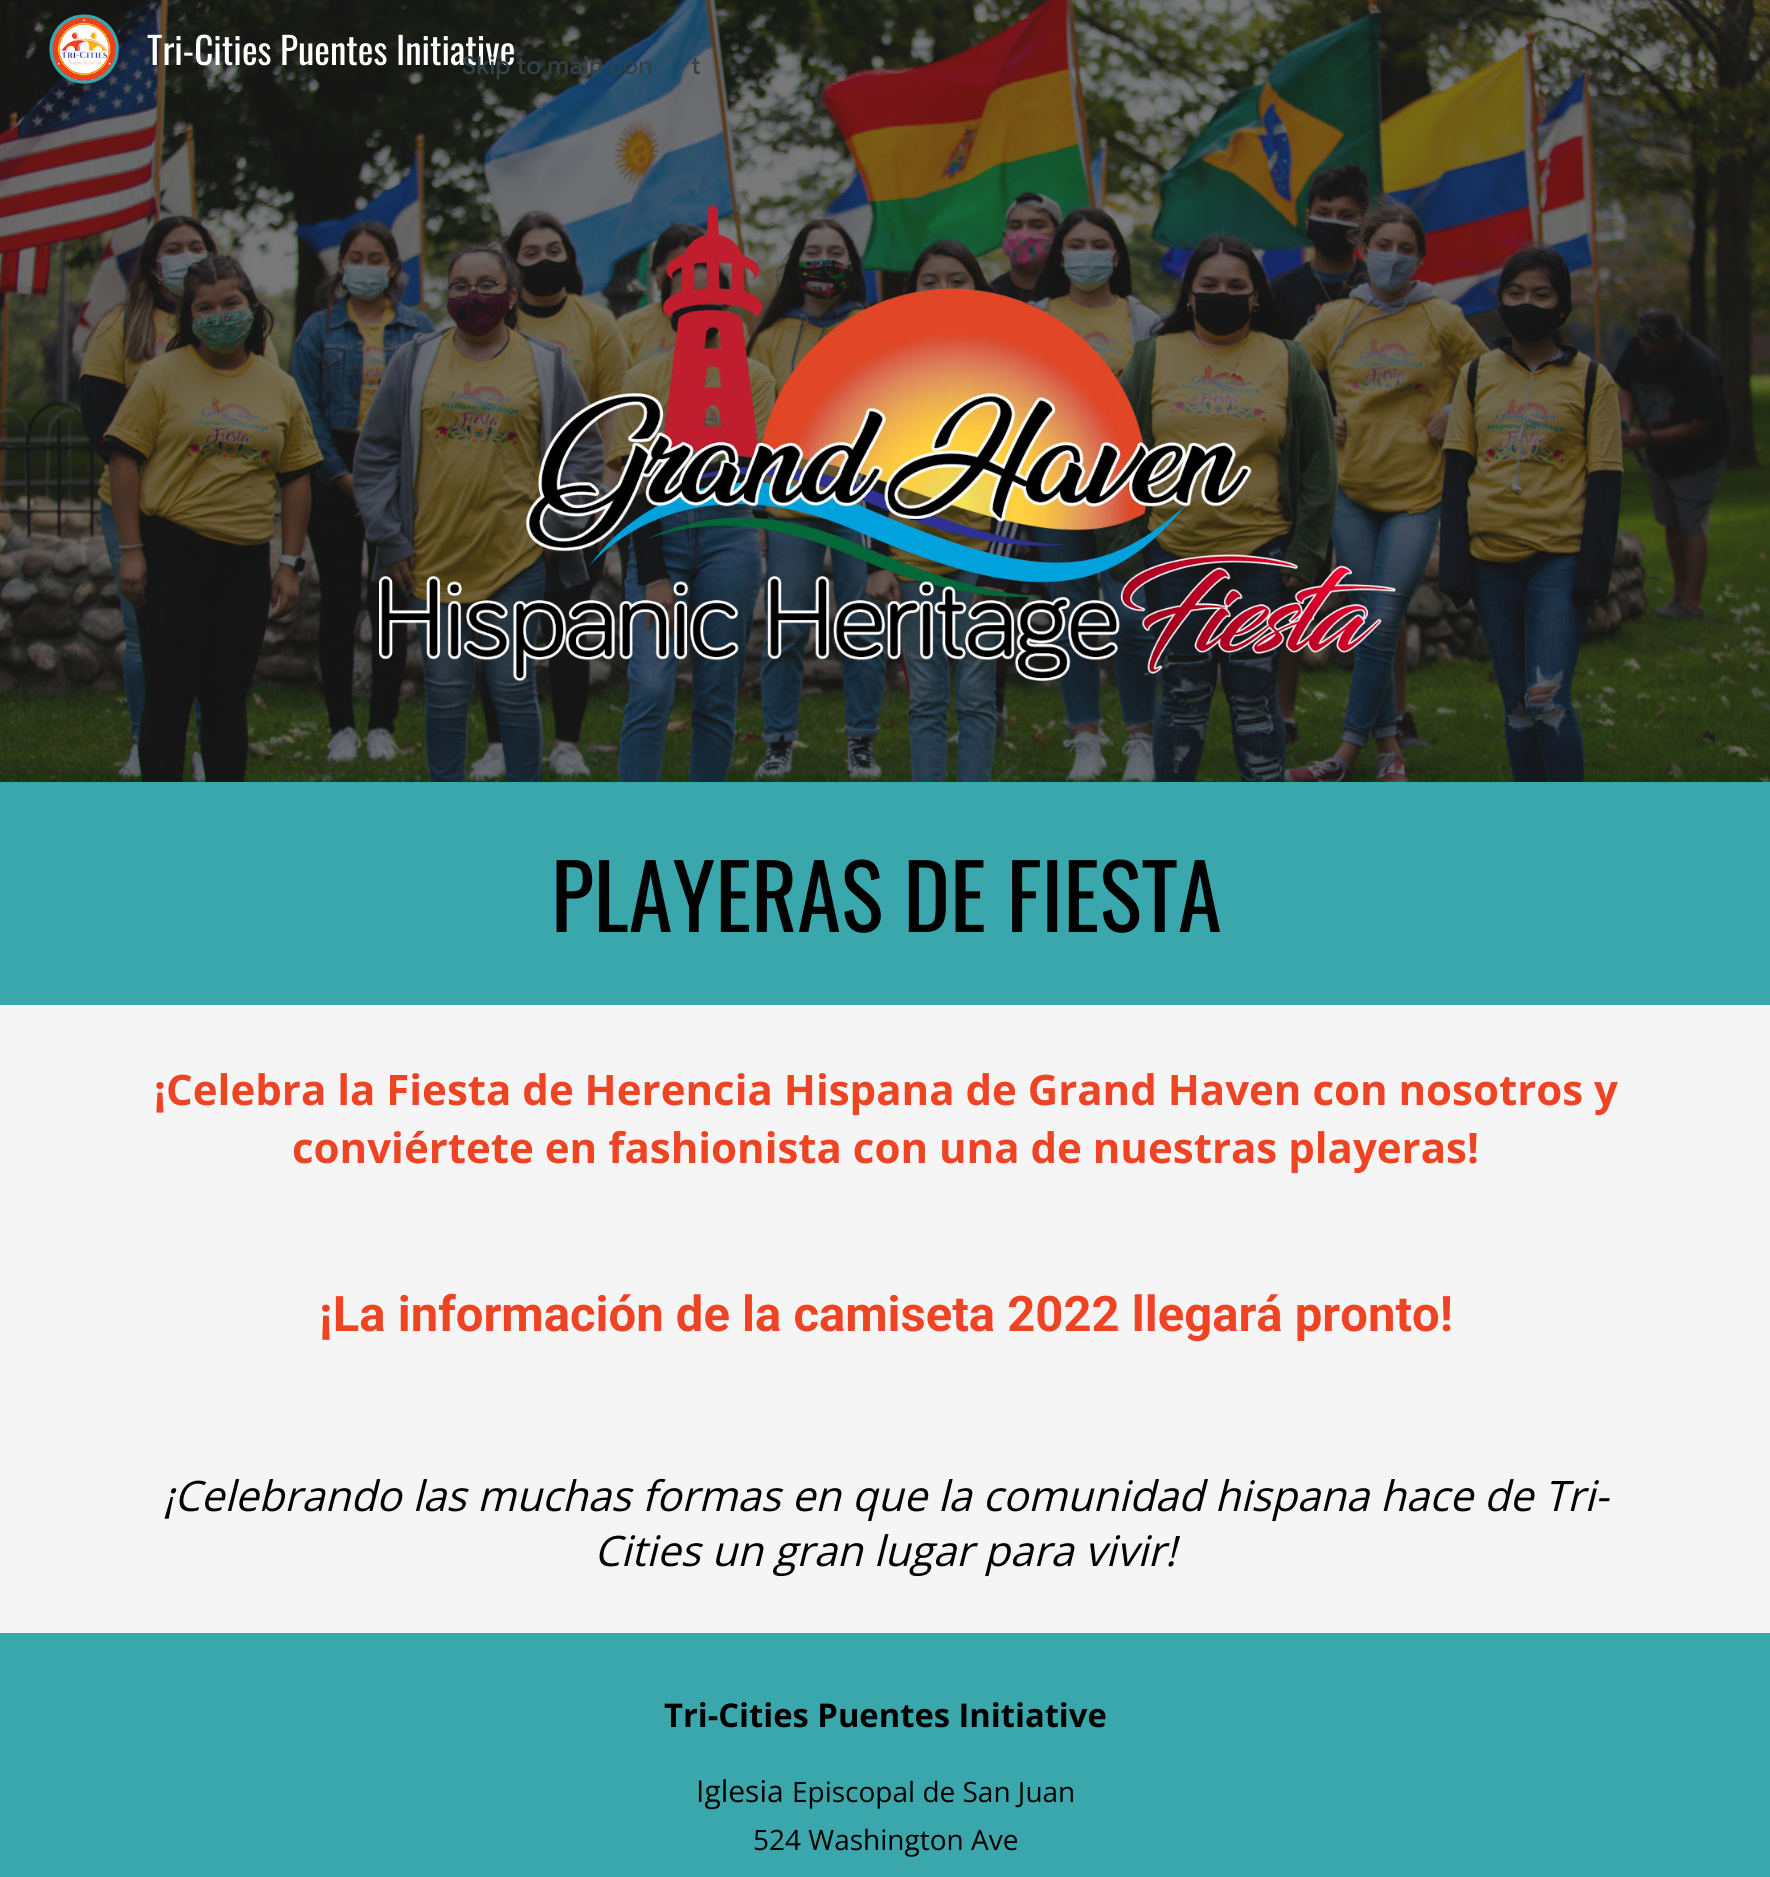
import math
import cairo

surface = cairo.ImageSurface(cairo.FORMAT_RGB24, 1770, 1877)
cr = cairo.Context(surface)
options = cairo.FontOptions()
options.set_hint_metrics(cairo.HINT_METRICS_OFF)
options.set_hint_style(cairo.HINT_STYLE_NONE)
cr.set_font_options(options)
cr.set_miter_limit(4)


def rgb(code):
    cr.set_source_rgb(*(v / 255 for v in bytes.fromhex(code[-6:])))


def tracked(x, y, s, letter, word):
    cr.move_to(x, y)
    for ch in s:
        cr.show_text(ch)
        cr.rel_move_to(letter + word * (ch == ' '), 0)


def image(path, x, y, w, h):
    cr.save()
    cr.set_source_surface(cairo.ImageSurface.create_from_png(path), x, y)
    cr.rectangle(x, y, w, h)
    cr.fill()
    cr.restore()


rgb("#ffffff")
cr.paint()
image("img/2.png", 0, 0, 1770, 782)
image("img/1.png", 49, 14, 70, 70)
image("img/3.png", 379, 205, 1017, 476)
for x, y, w, h, color in [
    (0, 782, 1770, 223, "#3aa7ac"),
    (0, 1005, 1770, 628, "#f5f5f5"),
    (0, 1633, 1770, 244, "#3aa7ac"),
]:
    rgb(color)
    cr.rectangle(x, y, w, h)
    cr.fill()
cr.select_font_face("Oswald")
cr.set_font_size(37.25)
rgb("#ffffff")
cr.move_to(147, 65)
cr.show_text("Tri-Cities Puentes Initiative")
cr.set_font_size(88.75)
rgb("#000000")
cr.move_to(551, 932)
cr.show_text("PLAYERAS DE FIESTA")
cr.select_font_face("Open Sans", cairo.FONT_SLANT_NORMAL, cairo.FONT_WEIGHT_BOLD)
cr.set_font_size(42)
rgb("#ee4423")
cr.move_to(154, 1105)
cr.show_text("¡Celebra la Fiesta de Herencia Hispana de Grand Haven con nosotros y")
cr.move_to(292, 1163)
cr.show_text("conviértete en fashionista con una de nuestras playeras!")
cr.select_font_face("Roboto", cairo.FONT_SLANT_NORMAL, cairo.FONT_WEIGHT_BOLD)
cr.set_font_size(49)
cr.move_to(319, 1331)
cr.show_text("¡La información de la camiseta 2022 llegará pronto!")
cr.select_font_face("Open Sans", cairo.FONT_SLANT_ITALIC)
cr.set_font_size(42)
rgb("#000000")
cr.move_to(163, 1511)
cr.show_text("¡Celebrando las muchas formas en que la comunidad hispana hace de Tri-")
cr.move_to(594, 1566)
cr.show_text("Cities un gran lugar para vivir!")
cr.select_font_face("Open Sans", cairo.FONT_SLANT_NORMAL, cairo.FONT_WEIGHT_BOLD)
cr.set_font_size(32.7)
cr.move_to(664, 1727)
cr.show_text("Tri-Cities Puentes Initiative")
cr.select_font_face("Open Sans")
cr.set_font_size(30)
cr.move_to(696, 1802)
cr.show_text("Iglesia")
cr.set_font_size(28)
cr.move_to(792, 1802)
cr.show_text("Episcopal de San Juan")
cr.move_to(753, 1850)
cr.show_text("524 Washington Ave")
cr.select_font_face("Google Sans Medium")
cr.set_font_size(24.5)
rgb("#314148")
tracked(462, 74, "Skip to main con", 0.25, 0)
tracked(691, 74, "t", 0.25, 0)
surface.write_to_png("page.png")
